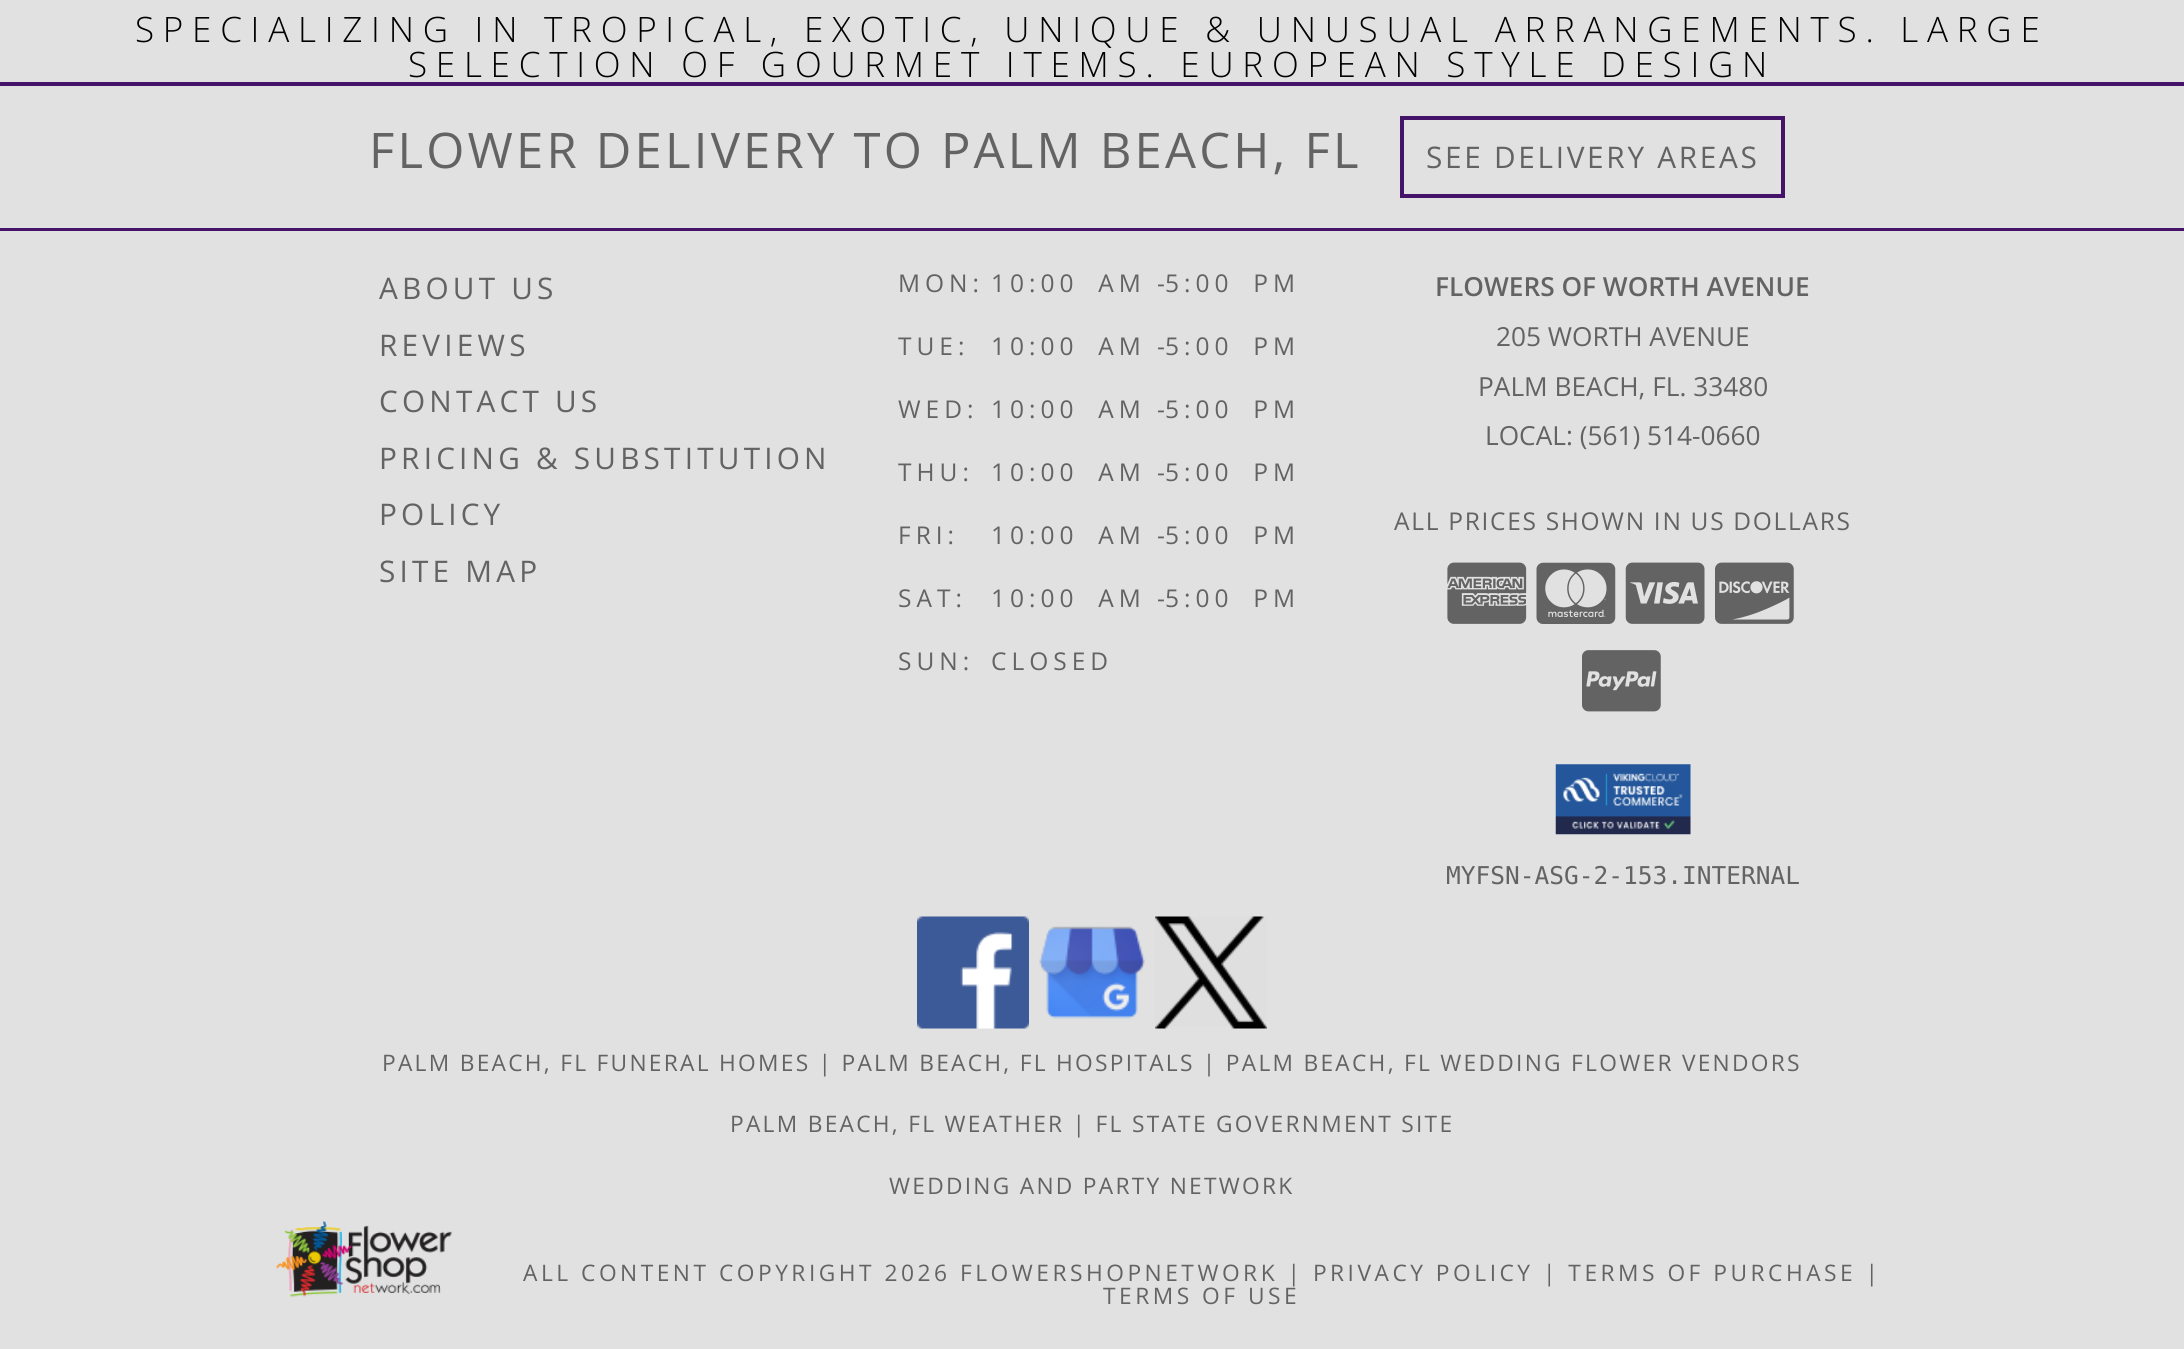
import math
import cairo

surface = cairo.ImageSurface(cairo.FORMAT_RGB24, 2184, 1349)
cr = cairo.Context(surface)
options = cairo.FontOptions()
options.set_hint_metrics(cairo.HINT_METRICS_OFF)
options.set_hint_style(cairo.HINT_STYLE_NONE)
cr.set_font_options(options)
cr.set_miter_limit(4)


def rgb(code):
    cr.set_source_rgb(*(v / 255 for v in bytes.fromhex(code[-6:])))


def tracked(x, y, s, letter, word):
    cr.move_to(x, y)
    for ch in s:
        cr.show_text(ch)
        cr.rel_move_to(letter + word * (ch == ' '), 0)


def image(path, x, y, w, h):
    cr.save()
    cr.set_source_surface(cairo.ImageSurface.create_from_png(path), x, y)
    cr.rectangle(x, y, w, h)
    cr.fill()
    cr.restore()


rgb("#e1e1e1")
cr.paint()
rgb("#451368")
cr.rectangle(0, 82, 2184, 4)
cr.fill()
cr.rectangle(0, 228, 2184, 3)
cr.fill()
cr.rectangle(1402, 118, 381, 78)
cr.set_line_width(4)
cr.stroke()
image("img/1.png", 1447, 562, 80, 62)
image("img/2.png", 1536, 562, 80, 62)
image("img/3.png", 1625, 562, 80, 62)
image("img/4.png", 1715, 562, 79, 62)
image("img/5.png", 1582, 650, 79, 62)
image("img/6.png", 1555, 764, 136, 71)
image("img/7.png", 917, 916, 112, 113)
image("img/8.png", 1039, 926, 106, 93)
image("img/9.png", 1155, 916, 112, 113)
image("img/10.png", 276, 1221, 176, 76)
cr.select_font_face("Open Sans Light")
cr.set_font_size(35)
rgb("#000000")
tracked(135, 42, "SPECIALIZING IN TROPICAL, EXOTIC, UNIQUE & UNUSUAL ARRANGEMENTS. LARGE", 8.75, 0)
tracked(408, 77, "SELECTION OF GOURMET ITEMS. EUROPEAN STYLE DESIGN", 8.75, 0)
cr.select_font_face("Open Sans")
cr.set_font_size(49)
rgb("#636363")
tracked(369, 168, "FLOWER DELIVERY TO PALM BEACH, FL", 3.2, 0)
cr.set_font_size(29.75)
tracked(1426, 168, "SEE DELIVERY AREAS", 2.7, 0)
for x, y, s in [
    (379, 299, "ABOUT US"),
    (379, 356, "REVIEWS"),
    (379, 412, "CONTACT US"),
    (379, 469, "PRICING & SUBSTITUTION"),
    (379, 525, "POLICY"),
    (379, 582, "SITE MAP"),
]:
    tracked(x, y, s, 4.2, 0)
cr.set_font_size(24.5)
for x, y, s in [
    (898, 292, "MON:"),
    (991, 292, "10:00 AM -"),
    (1165, 292, "5:00 PM"),
    (898, 355, "TUE:"),
    (991, 355, "10:00 AM -"),
    (1165, 355, "5:00 PM"),
    (898, 418, "WED:"),
    (991, 418, "10:00 AM -"),
    (1165, 418, "5:00 PM"),
    (898, 481, "THU:"),
    (991, 481, "10:00 AM -"),
    (1165, 481, "5:00 PM"),
    (898, 544, "FRI:"),
    (991, 544, "10:00 AM -"),
    (1165, 544, "5:00 PM"),
    (898, 607, "SAT:"),
    (991, 607, "10:00 AM -"),
    (1165, 607, "5:00 PM"),
    (898, 670, "SUN:"),
    (991, 670, "CLOSED"),
]:
    tracked(x, y, s, 5, 0)
cr.select_font_face("Open Sans SemiBold")
cr.set_font_size(26.25)
cr.move_to(1435, 296)
cr.show_text("FLOWERS OF WORTH AVENUE")
cr.select_font_face("Open Sans")
for x, y, s in [
    (1496, 346, "205 WORTH AVENUE"),
    (1478, 396, "PALM BEACH, FL. 33480"),
    (1485, 445, "LOCAL: (561) 514-0660"),
]:
    cr.move_to(x, y)
    cr.show_text(s)
cr.set_font_size(24.5)
tracked(1394, 530, "ALL PRICES SHOWN IN US DOLLARS", 1.7, 0)
cr.select_font_face("DejaVu Sans Mono")
cr.move_to(1446, 884)
cr.show_text("MYFSN-ASG-2-153.INTERNAL")
cr.select_font_face("Open Sans")
cr.set_font_size(22.75)
for x, y, s in [
    (382, 1071, "PALM BEACH, FL FUNERAL HOMES | PALM BEACH, FL HOSPITALS | PALM BEACH, FL WEDDING FLOWER VENDORS"),
    (730, 1132, "PALM BEACH, FL WEATHER | FL STATE GOVERNMENT SITE"),
    (889, 1194, "WEDDING AND PARTY NETWORK"),
]:
    tracked(x, y, s, 2.27, 0)
tracked(523, 1281, "ALL CONTENT COPYRIGHT 2026 FLOWERSHOPNETWORK | PRIVACY POLICY | TERMS OF PURCHASE |", 3.5, 0)
tracked(1103, 1304, "TERMS OF USE", 3.5, 0)
surface.write_to_png("page.png")
